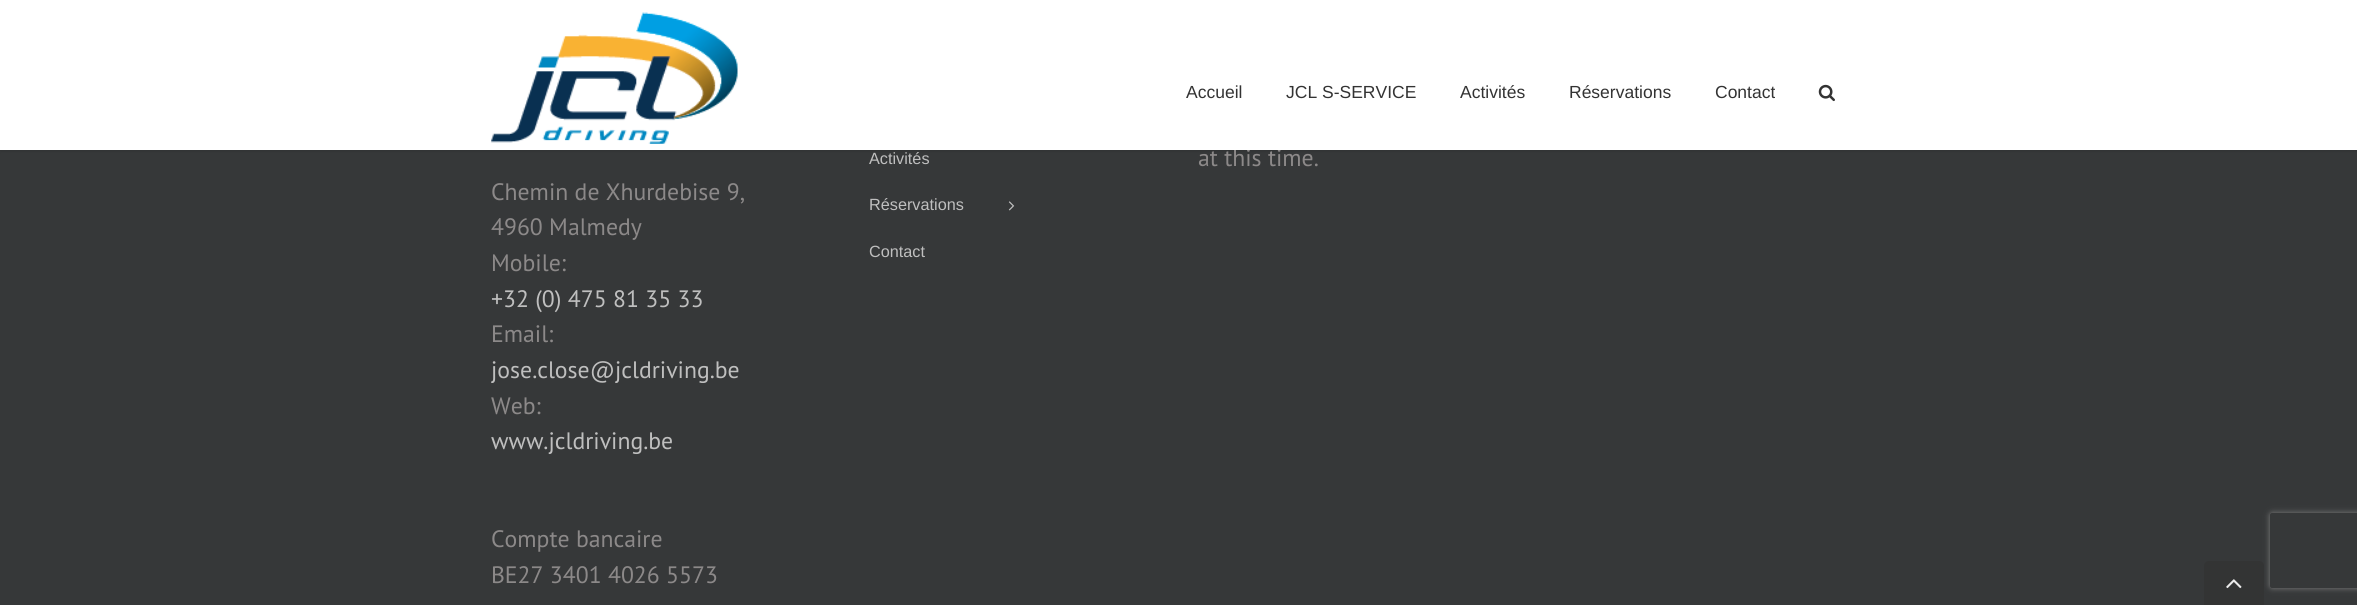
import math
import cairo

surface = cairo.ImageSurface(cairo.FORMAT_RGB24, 2357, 605)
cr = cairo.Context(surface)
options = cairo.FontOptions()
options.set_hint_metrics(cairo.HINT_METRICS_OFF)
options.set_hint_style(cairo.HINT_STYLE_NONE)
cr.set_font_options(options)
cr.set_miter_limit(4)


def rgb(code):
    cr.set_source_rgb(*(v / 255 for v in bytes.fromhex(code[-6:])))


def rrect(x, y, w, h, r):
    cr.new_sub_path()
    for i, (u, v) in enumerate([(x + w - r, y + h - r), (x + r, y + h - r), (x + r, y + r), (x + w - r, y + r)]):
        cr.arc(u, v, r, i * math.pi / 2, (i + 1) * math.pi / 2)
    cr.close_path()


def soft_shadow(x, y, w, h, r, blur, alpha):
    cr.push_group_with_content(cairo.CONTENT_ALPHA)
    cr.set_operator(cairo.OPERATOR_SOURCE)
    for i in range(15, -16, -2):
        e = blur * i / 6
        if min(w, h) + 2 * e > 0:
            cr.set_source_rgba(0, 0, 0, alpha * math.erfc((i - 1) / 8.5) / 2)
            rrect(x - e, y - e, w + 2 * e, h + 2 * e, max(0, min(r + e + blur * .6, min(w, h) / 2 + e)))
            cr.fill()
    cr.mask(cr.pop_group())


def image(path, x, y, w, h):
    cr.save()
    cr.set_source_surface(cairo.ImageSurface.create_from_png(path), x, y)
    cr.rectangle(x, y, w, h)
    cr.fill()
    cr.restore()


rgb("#363839")
cr.paint()
rgb("#000000")
soft_shadow(0, 1, 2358, 150, 0, 2, 0.12)
image("img/3.png", 1008, 201, 7, 10)
cr.save()
cr.set_fill_rule(cairo.FILL_RULE_EVEN_ODD)
cr.new_path()
cr.move_to(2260, 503)
cr.line_to(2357, 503)
cr.line_to(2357, 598)
cr.line_to(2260, 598)
cr.close_path()
cr.move_to(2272.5, 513)
cr.line_to(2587.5, 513)
cr.curve_to(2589, 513, 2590, 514, 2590, 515.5)
cr.line_to(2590, 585.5)
cr.curve_to(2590, 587, 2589, 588, 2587.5, 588)
cr.line_to(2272.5, 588)
cr.curve_to(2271, 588, 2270, 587, 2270, 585.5)
cr.line_to(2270, 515.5)
cr.curve_to(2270, 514, 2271, 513, 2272.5, 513)
cr.close_path()
cr.clip()
rgb("#808080")
soft_shadow(2270, 513, 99, 75, 2.5, 3, 1)
cr.restore()
rgb("#333434")
cr.new_path()
cr.move_to(2209, 561)
cr.line_to(2259, 561)
cr.curve_to(2262, 561, 2264, 563, 2264, 566)
cr.line_to(2264, 605)
cr.line_to(2204, 605)
cr.line_to(2204, 566)
cr.curve_to(2204, 563, 2206, 561, 2209, 561)
cr.close_path()
cr.fill()
image("img/4.png", 2226, 579, 16, 10)
cr.select_font_face("PT Sans")
cr.set_font_size(23.75)
rgb("#8c8989")
for x, y, s in [
    (491, 200, "Chemin de Xhurdebise 9,"),
    (491, 235, "4960 Malmedy"),
    (491, 271, "Mobile:"),
]:
    cr.move_to(x, y)
    cr.show_text(s)
rgb("#bfbfbf")
cr.move_to(491, 307)
cr.show_text("+32 (0) 475 81 35 33")
rgb("#8c8989")
cr.move_to(491, 342)
cr.show_text("Email:")
rgb("#bfbfbf")
cr.move_to(491, 378)
cr.show_text("jose.close@jcldriving.be")
rgb("#8c8989")
cr.move_to(491, 414)
cr.show_text("Web:")
rgb("#bfbfbf")
cr.move_to(491, 449)
cr.show_text("www.jcldriving.be")
rgb("#8c8989")
cr.move_to(491, 547)
cr.show_text("Compte bancaire")
cr.move_to(491, 583)
cr.show_text("BE27 3401 4026 5573")
cr.select_font_face("Liberation Sans")
cr.set_font_size(16.25)
rgb("#bfbfbf")
for x, y, s in [
    (869, 164, "Activités"),
    (869, 210, "Réservations"),
    (869, 257, "Contact"),
]:
    cr.move_to(x, y)
    cr.show_text(s)
cr.select_font_face("PT Sans")
cr.set_font_size(23.75)
rgb("#8c8989")
cr.move_to(1198, 166)
cr.show_text("at this time.")
rgb("#ffffff")
cr.rectangle(0, 0, 2357, 150)
cr.fill()
image("img/2.png", 1818, 84, 17, 18)
cr.select_font_face("Liberation Sans")
cr.set_font_size(17.5)
rgb("#333333")
for x, y, s in [
    (1715, 98, "Contact"),
    (1569, 98, "Réservations"),
    (1460, 98, "Activités"),
    (1286, 98, "JCL S-SERVICE"),
    (1186, 98, "Accueil"),
]:
    cr.move_to(x, y)
    cr.show_text(s)
image("img/1.png", 491, 12, 247, 132)
surface.write_to_png("page.png")
